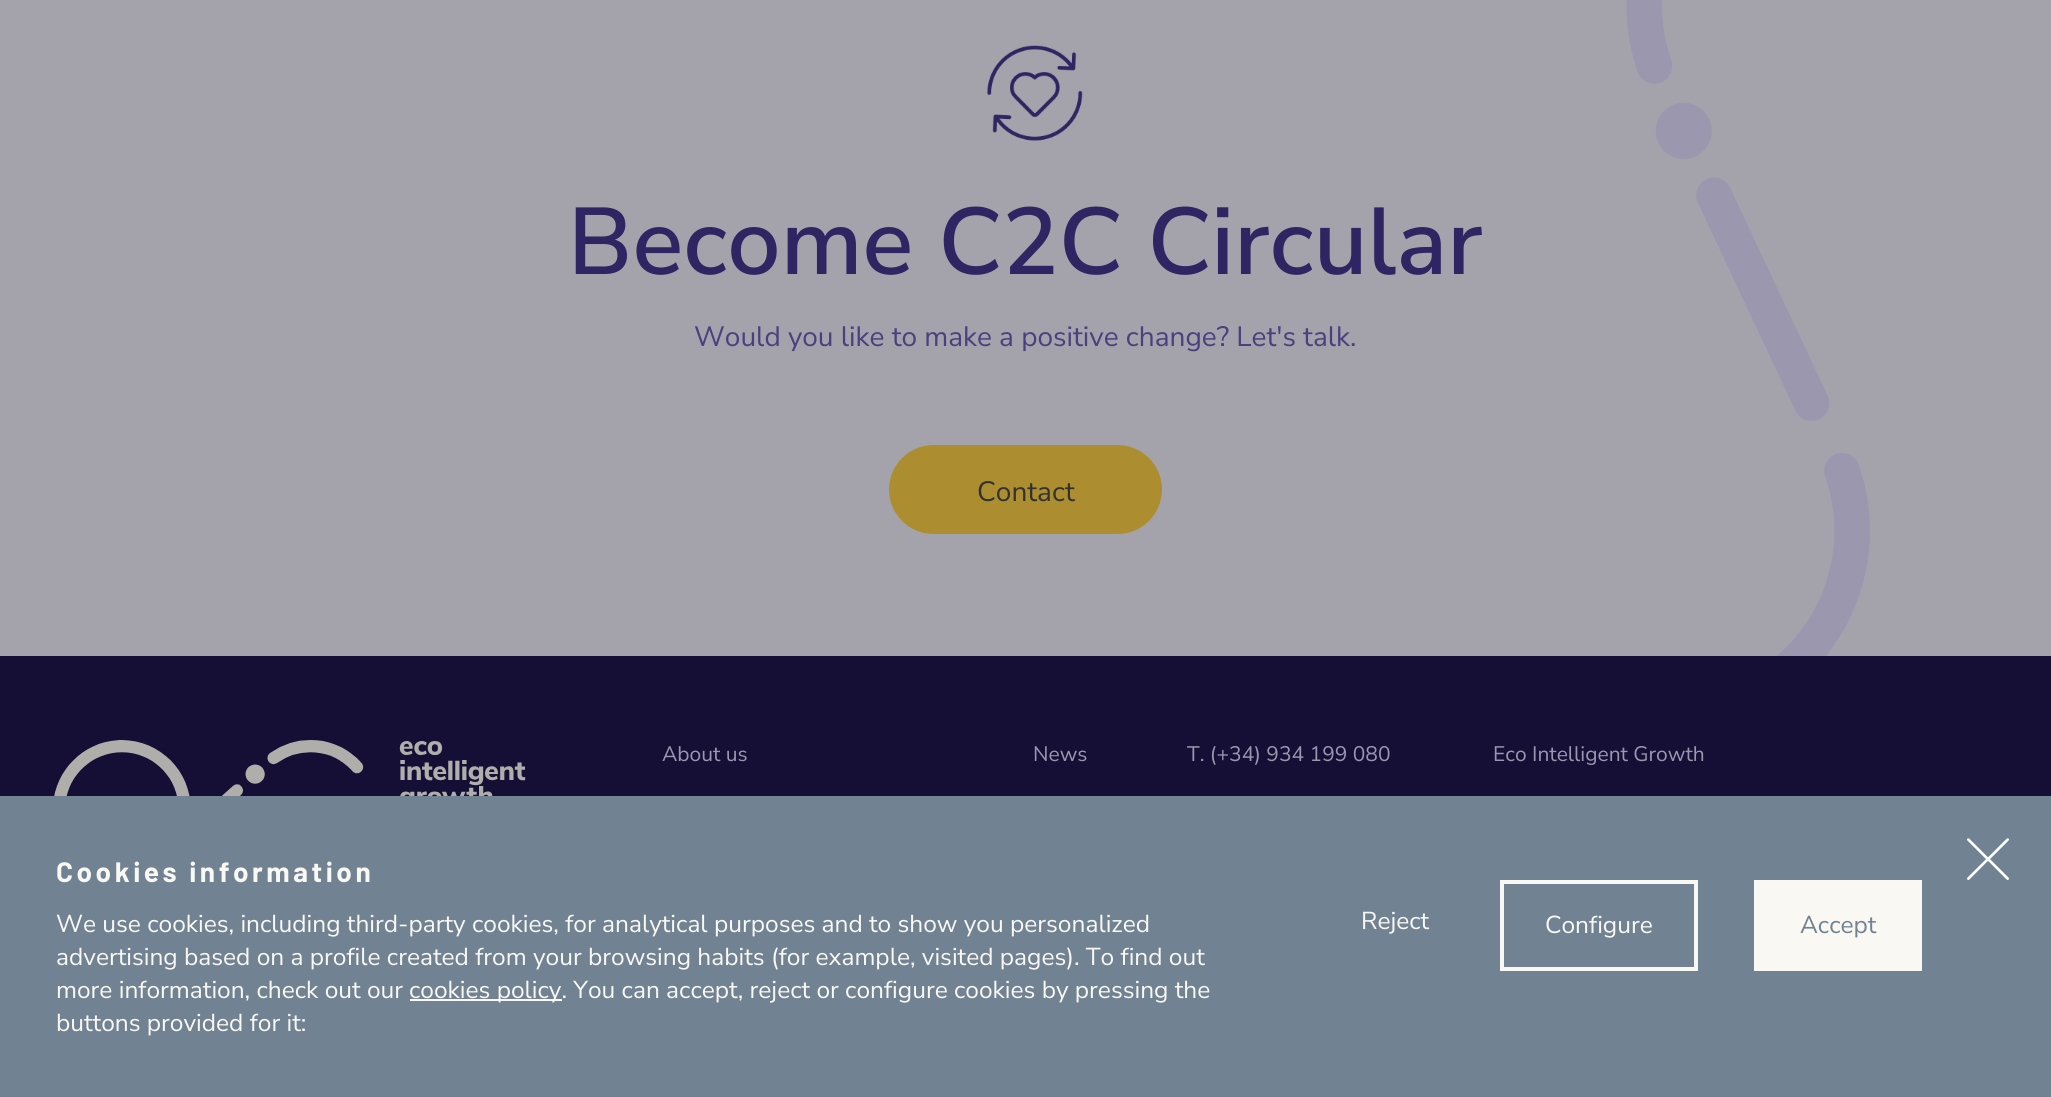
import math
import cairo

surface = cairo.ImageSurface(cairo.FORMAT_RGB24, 2051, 1097)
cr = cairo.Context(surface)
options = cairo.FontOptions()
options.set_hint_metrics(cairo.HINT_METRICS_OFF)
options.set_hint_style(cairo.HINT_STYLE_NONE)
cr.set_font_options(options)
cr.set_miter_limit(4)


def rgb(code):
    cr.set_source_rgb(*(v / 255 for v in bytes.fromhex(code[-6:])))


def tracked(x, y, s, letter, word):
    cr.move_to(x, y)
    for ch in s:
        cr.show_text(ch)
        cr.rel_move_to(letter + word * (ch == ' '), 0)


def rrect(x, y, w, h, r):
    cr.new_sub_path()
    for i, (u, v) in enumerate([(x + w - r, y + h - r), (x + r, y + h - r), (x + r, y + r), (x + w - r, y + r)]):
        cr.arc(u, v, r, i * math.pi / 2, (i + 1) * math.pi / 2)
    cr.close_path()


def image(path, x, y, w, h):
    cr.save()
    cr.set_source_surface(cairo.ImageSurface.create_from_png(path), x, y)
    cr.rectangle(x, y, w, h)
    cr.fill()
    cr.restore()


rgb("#eae8f3")
cr.paint()
image("img/1.png", 1626, 0, 244, 656)
image("img/2.png", 987, 45, 96, 96)
rgb("#f5cb45")
rrect(889, 445, 273, 89, 44.5)
cr.fill()
rgb("#1e154d")
cr.rectangle(0, 656, 2051, 140)
cr.fill()
image("img/3.png", 54, 740, 472, 56)
rgb("#718293")
cr.rectangle(0, 796, 2051, 301)
cr.fill()
rgb("#f9f8f3")
cr.rectangle(410, 999, 152, 2)
cr.fill()
image("img/4.png", 1967, 838, 42, 42)
cr.rectangle(1502, 882, 194, 87)
cr.set_line_width(4)
cr.stroke()
cr.rectangle(1754, 880, 168, 91)
cr.fill()
cr.select_font_face("Nunito Sans SemiBold")
cr.set_font_size(94.5)
rgb("#43358b")
cr.move_to(568, 274)
cr.show_text("Become C2C Circular")
cr.select_font_face("Nunito Sans")
cr.set_font_size(28)
rgb("#6a5ab5")
cr.move_to(694, 346)
cr.show_text("Would you like to make a positive change? Let's talk.")
rgb("#474747")
cr.move_to(977, 501)
cr.show_text("Contact")
cr.set_font_size(21)
rgb("#dcd7f8")
for x, y, s in [
    (662, 761, "About us"),
    (1033, 761, "News"),
    (1187, 761, "T. (+34) 934 199 080"),
    (1493, 761, "Eco Intelligent Growth"),
]:
    cr.move_to(x, y)
    cr.show_text(s)
cr.set_source_rgba(0, 0, 0, 0.3)
cr.rectangle(0, 0, 2051, 796)
cr.fill()
cr.select_font_face("Barlow", cairo.FONT_SLANT_NORMAL, cairo.FONT_WEIGHT_BOLD)
cr.set_font_size(28)
rgb("#f9f8f3")
tracked(56, 882, "Cookies information", 3.5, 0)
cr.select_font_face("Nunito Sans")
cr.set_font_size(24.5)
for x, y, s in [
    (56, 932, "We use cookies, including third-party cookies, for analytical purposes and to show you personalized"),
    (56, 965, "advertising based on a profile created from your browsing habits (for example, visited pages). To find out"),
    (56, 998, "more information, check out our"),
    (409, 998, "cookies policy. You can accept, reject or configure cookies by pressing the"),
    (56, 1031, "buttons provided for it:"),
    (1361, 929, "Reject"),
    (1545, 933, "Configure"),
]:
    cr.move_to(x, y)
    cr.show_text(s)
rgb("#718293")
cr.move_to(1800, 933)
cr.show_text("Accept")
surface.write_to_png("page.png")
